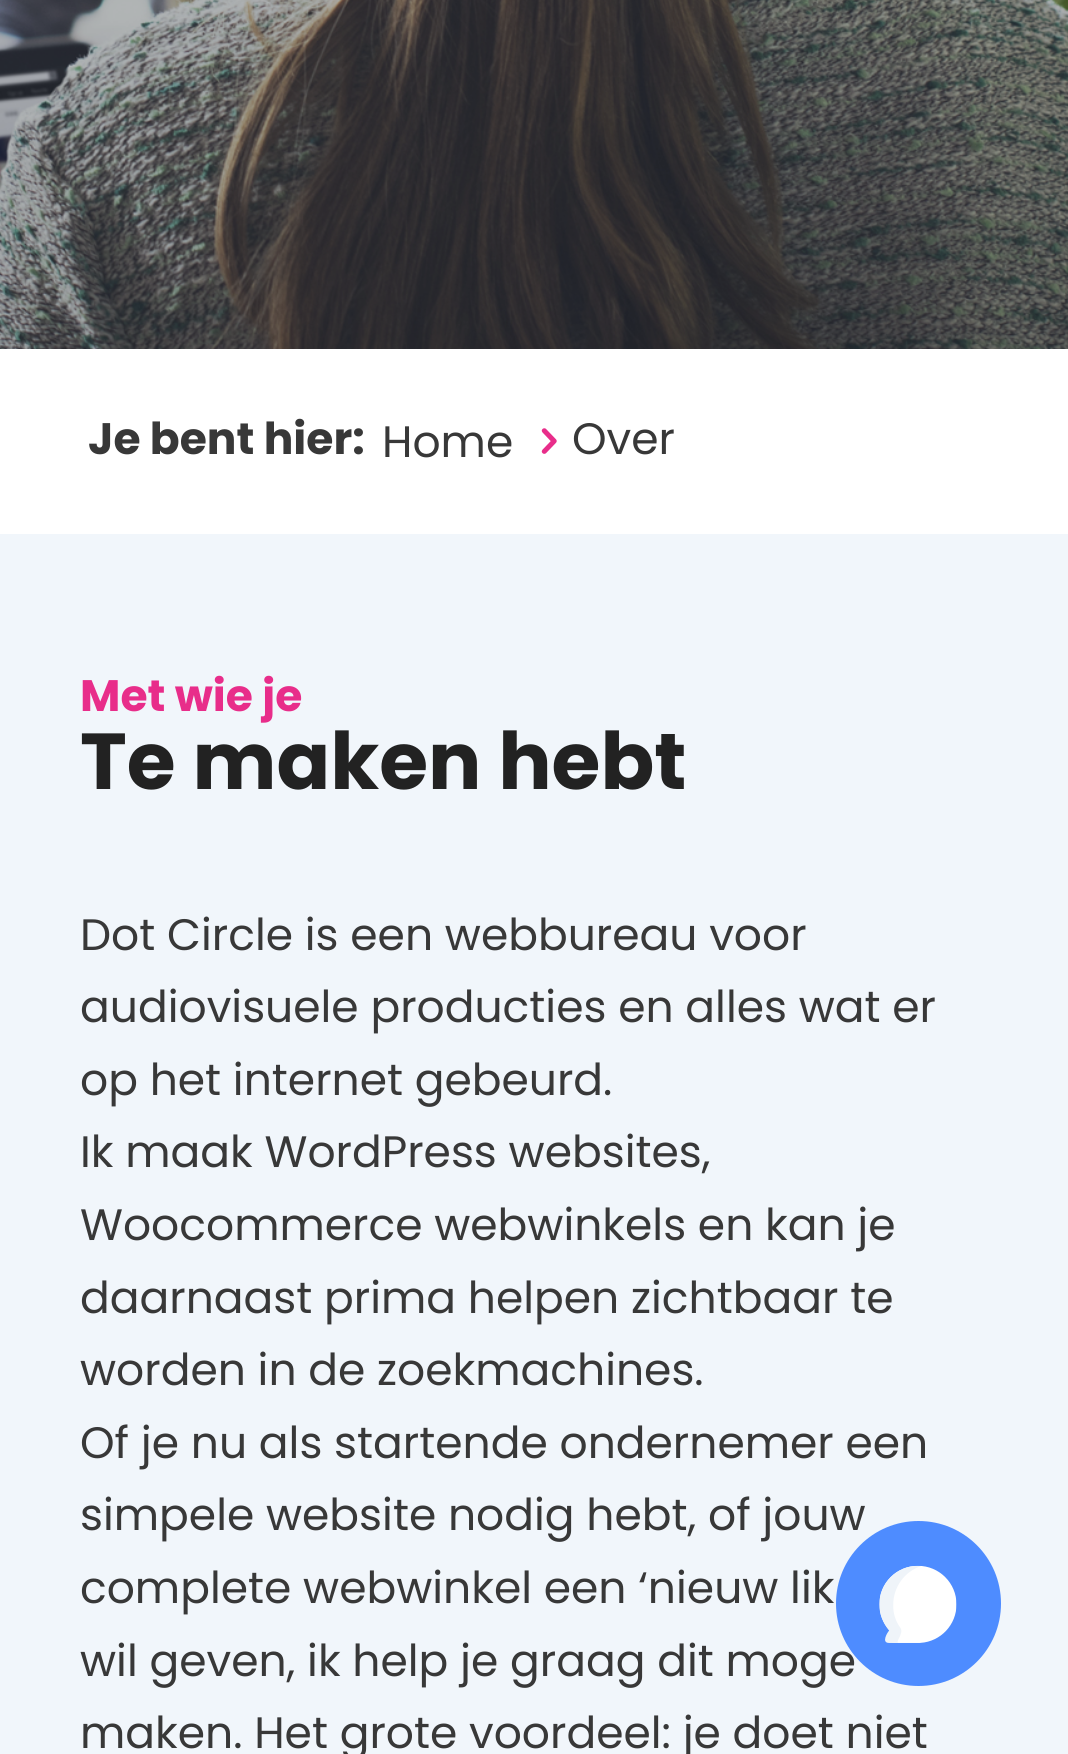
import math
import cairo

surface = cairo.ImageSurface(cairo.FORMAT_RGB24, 1068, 1754)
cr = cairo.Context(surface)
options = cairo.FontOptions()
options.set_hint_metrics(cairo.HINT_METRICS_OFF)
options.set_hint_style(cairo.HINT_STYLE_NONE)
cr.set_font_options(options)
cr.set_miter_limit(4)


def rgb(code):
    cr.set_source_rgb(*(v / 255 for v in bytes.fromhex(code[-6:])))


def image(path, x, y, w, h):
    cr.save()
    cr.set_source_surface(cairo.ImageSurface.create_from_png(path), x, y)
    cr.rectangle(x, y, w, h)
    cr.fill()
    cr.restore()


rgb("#ffffff")
cr.paint()
image("img/1.png", 0, 0, 1068, 349)
image("img/2.png", 541, 428, 16, 26)
rgb("#f1f6fb")
cr.rectangle(0, 534, 1068, 1220)
cr.fill()
cr.select_font_face("Poppins", cairo.FONT_SLANT_NORMAL, cairo.FONT_WEIGHT_BOLD)
cr.set_font_size(44)
rgb("#383838")
cr.move_to(88, 454)
cr.show_text("Je bent hier:")
cr.select_font_face("Poppins")
cr.move_to(382, 457)
cr.show_text("Home")
cr.move_to(572, 454)
cr.show_text("Over")
cr.select_font_face("Poppins", cairo.FONT_SLANT_NORMAL, cairo.FONT_WEIGHT_BOLD)
rgb("#e82d8a")
cr.move_to(80, 711)
cr.show_text("Met wie je")
cr.set_font_size(79.25)
rgb("#222222")
cr.move_to(80, 789)
cr.show_text("Te maken hebt")
cr.select_font_face("Poppins")
cr.set_font_size(44)
rgb("#383838")
for x, y, s in [
    (80, 950, "Dot Circle is een webbureau voor"),
    (80, 1022, "audiovisuele producties en alles wat er"),
    (80, 1095, "op het internet gebeurd."),
    (80, 1167, "Ik maak WordPress websites,"),
    (80, 1240, "Woocommerce webwinkels en kan je"),
    (80, 1313, "daarnaast prima helpen zichtbaar te"),
    (80, 1385, "worden in de zoekmachines."),
    (80, 1458, "Of je nu als startende ondernemer een"),
    (80, 1530, "simpele website nodig hebt, of jouw"),
    (80, 1603, "complete webwinkel een ‘nieuw lik"),
    (80, 1676, "wil geven, ik help je graag dit moge"),
    (80, 1748, "maken. Het grote voordeel: je doet niet"),
]:
    cr.move_to(x, y)
    cr.show_text(s)
rgb("#4e8cff")
cr.new_path()
cr.arc(918.5, 1603.5, 82.5, 0, 2 * math.pi)
cr.fill()
image("img/3.png", 879, 1565, 78, 78)
surface.write_to_png("page.png")
